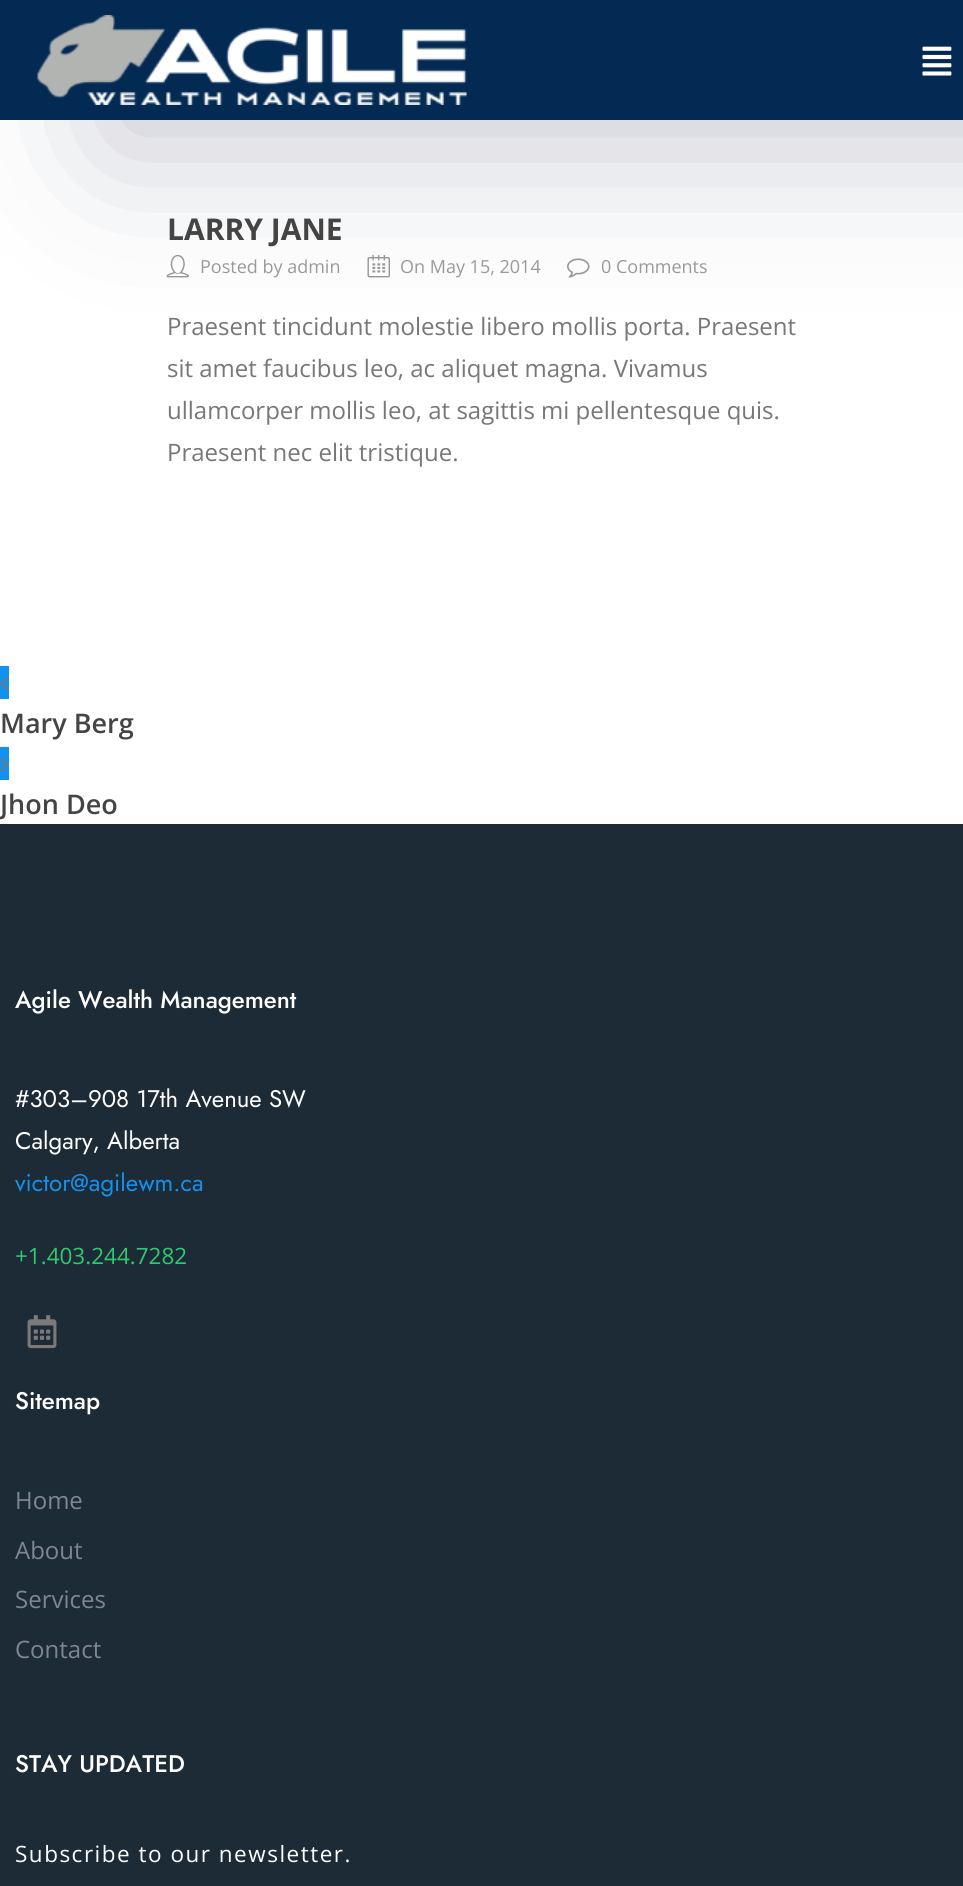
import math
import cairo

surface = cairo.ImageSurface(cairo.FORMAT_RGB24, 963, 1886)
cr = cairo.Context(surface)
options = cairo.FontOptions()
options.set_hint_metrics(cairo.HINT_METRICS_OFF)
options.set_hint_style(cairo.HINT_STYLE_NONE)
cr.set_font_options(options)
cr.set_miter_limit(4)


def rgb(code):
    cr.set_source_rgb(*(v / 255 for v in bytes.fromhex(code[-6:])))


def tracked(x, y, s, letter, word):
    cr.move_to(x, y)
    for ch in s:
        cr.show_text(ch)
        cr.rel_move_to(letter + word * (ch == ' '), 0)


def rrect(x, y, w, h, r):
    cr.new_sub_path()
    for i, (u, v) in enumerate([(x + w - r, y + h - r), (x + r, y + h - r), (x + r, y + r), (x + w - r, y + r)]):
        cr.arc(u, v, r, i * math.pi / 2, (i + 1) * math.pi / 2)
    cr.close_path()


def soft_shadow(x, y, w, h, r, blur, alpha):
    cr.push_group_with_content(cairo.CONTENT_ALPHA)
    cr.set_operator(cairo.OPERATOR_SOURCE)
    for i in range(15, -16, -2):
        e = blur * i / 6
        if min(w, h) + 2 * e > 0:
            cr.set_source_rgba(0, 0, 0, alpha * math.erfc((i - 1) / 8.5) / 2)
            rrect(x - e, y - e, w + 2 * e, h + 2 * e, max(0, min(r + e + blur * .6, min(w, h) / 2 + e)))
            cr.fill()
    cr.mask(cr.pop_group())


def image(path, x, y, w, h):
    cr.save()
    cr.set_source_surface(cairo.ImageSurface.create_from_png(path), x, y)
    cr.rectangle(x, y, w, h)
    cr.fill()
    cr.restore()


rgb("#ffffff")
cr.paint()
image("img/3.png", 166, 254, 23, 24)
image("img/4.png", 367, 255, 23, 23)
image("img/5.png", 567, 258, 23, 20)
rgb("#262a4c")
soft_shadow(105, 30, 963, 120, 0, 75, 0.25)
rgb("#032a53")
cr.rectangle(0, 0, 963, 120)
cr.fill()
image("img/1.png", 37, 15, 430, 90)
image("img/2.png", 922, 46, 30, 30)
rgb("#1292ee")
cr.rectangle(0, 666, 9, 33)
cr.fill()
image("img/6.png", 0, 677, 9, 14)
cr.rectangle(0, 747, 9, 33)
cr.fill()
image("img/7.png", 0, 758, 8, 14)
rgb("#1d2b36")
cr.rectangle(0, 824, 963, 1062)
cr.fill()
image("img/8.png", 27, 1315, 30, 34)
cr.select_font_face("Open Sans", cairo.FONT_SLANT_NORMAL, cairo.FONT_WEIGHT_BOLD)
cr.set_font_size(30)
rgb("#444444")
cr.move_to(167, 240)
cr.show_text("LARRY JANE")
cr.select_font_face("Open Sans")
cr.set_font_size(18)
rgb("#999999")
for x, y, s in [
    (200, 273, "Posted by admin"),
    (400, 273, "On May 15, 2014"),
    (601, 273, "0 Comments"),
]:
    cr.move_to(x, y)
    cr.show_text(s)
cr.set_font_size(24)
rgb("#777777")
for x, y, s in [
    (167, 335, "Praesent tincidunt molestie libero mollis porta. Praesent"),
    (167, 377, "sit amet faucibus leo, ac aliquet magna. Vivamus"),
    (167, 419, "ullamcorper mollis leo, at sagittis mi pellentesque quis."),
    (167, 461, "Praesent nec elit tristique."),
]:
    cr.move_to(x, y)
    cr.show_text(s)
cr.select_font_face("Open Sans SemiBold")
cr.set_font_size(27)
rgb("#444444")
cr.move_to(0, 733)
cr.show_text("Mary Berg")
cr.move_to(0, 814)
cr.show_text("Jhon Deo")
cr.select_font_face("Jost Medium")
cr.set_font_size(24)
rgb("#ffffff")
cr.move_to(15, 1008)
cr.show_text("Agile Wealth Management")
cr.select_font_face("Jost")
cr.move_to(15, 1107)
cr.show_text("#303–908 17th Avenue SW")
cr.move_to(15, 1149)
cr.show_text("Calgary, Alberta")
rgb("#1292ee")
cr.move_to(15, 1191)
cr.show_text("victor@agilewm.ca")
cr.select_font_face("Open Sans")
cr.set_font_size(22.5)
rgb("#2dca73")
cr.move_to(15, 1264)
cr.show_text("+1.403.244.7282")
cr.select_font_face("Jost Medium")
cr.set_font_size(24)
rgb("#ffffff")
cr.move_to(15, 1409)
cr.show_text("Sitemap")
cr.select_font_face("Open Sans")
rgb("#818494")
for x, y, s in [
    (15, 1509, "Home"),
    (15, 1559, "About"),
    (15, 1608, "Services"),
    (15, 1658, "Contact"),
]:
    cr.move_to(x, y)
    cr.show_text(s)
cr.select_font_face("Jost Medium")
rgb("#ffffff")
cr.move_to(15, 1772)
cr.show_text("STAY UPDATED")
cr.select_font_face("Open Sans")
cr.set_font_size(22.5)
tracked(15, 1862, "Subscribe to our newsletter.", 1.5, 0)
surface.write_to_png("page.png")
